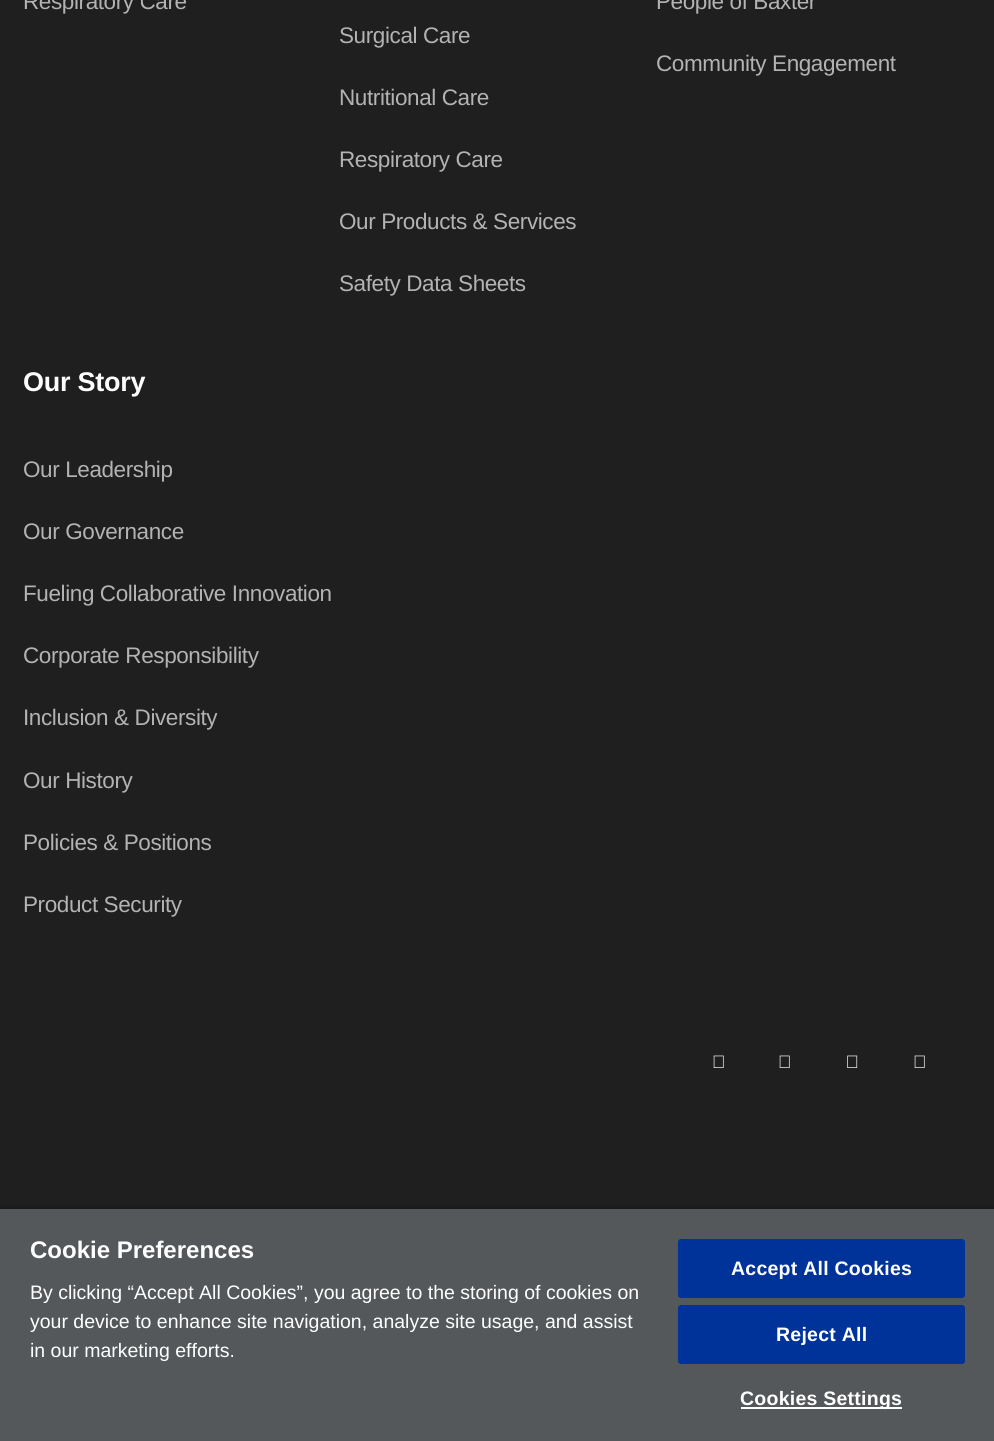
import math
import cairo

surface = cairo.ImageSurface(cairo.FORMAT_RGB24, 994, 1441)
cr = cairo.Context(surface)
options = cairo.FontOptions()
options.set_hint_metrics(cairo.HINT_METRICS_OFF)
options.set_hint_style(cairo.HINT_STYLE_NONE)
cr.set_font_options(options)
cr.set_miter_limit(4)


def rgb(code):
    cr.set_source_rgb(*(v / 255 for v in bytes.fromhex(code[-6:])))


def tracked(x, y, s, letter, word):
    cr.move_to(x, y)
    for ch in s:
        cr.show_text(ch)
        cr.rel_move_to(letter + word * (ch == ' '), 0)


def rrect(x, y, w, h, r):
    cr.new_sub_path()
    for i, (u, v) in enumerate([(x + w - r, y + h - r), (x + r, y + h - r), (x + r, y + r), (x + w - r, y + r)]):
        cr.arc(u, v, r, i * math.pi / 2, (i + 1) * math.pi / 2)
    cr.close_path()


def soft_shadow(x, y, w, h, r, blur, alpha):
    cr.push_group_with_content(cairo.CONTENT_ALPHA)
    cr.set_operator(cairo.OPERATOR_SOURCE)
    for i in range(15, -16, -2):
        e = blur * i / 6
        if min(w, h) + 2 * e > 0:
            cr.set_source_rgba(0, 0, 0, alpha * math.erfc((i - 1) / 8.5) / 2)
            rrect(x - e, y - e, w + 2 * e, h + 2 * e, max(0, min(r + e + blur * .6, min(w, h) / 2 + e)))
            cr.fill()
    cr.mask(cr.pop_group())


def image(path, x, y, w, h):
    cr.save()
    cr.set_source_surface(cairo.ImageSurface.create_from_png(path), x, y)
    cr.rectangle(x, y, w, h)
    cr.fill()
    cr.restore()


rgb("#1f1f1f")
cr.paint()
image("img/1.png", 713, 1055, 11, 13)
image("img/1.png", 779, 1055, 11, 13)
image("img/2.png", 847, 1055, 11, 13)
image("img/1.png", 914, 1055, 11, 13)
rgb("#000000")
soft_shadow(0, 1209, 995, 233, 0, 3, 0.35)
rgb("#54585a")
cr.rectangle(0, 1209, 994, 232)
cr.fill()
rgb("#003399")
rrect(679, 1240, 285, 57, 2)
cr.fill_preserve()
cr.stroke()
rrect(679, 1306, 285, 57, 2)
cr.fill_preserve()
cr.stroke()
rgb("#ffffff")
cr.rectangle(741, 1407, 161, 2)
cr.fill()
cr.select_font_face("Liberation Sans")
cr.set_font_size(22.5)
rgb("#b3b3b3")
for x, y, s in [
    (23, 9, "Respiratory Care"),
    (339, 43, "Surgical Care"),
    (339, 105, "Nutritional Care"),
    (339, 167, "Respiratory Care"),
    (339, 229, "Our Products & Services"),
    (339, 291, "Safety Data Sheets"),
    (656, 9, "People of Baxter"),
    (656, 71, "Community Engagement"),
]:
    tracked(x, y, s, -0.4, 0)
cr.select_font_face("Liberation Sans", cairo.FONT_SLANT_NORMAL, cairo.FONT_WEIGHT_BOLD)
cr.set_font_size(27)
rgb("#ffffff")
tracked(23, 391, "Our Story", -0.25, 0)
cr.select_font_face("Liberation Sans")
cr.set_font_size(22.5)
rgb("#b3b3b3")
for x, y, s in [
    (23, 477, "Our Leadership"),
    (23, 539, "Our Governance"),
    (23, 601, "Fueling Collaborative Innovation"),
    (23, 663, "Corporate Responsibility"),
    (23, 725, "Inclusion & Diversity"),
    (23, 788, "Our History"),
    (23, 850, "Policies & Positions"),
    (23, 912, "Product Security"),
]:
    tracked(x, y, s, -0.4, 0)
cr.select_font_face("Liberation Sans", cairo.FONT_SLANT_NORMAL, cairo.FONT_WEIGHT_BOLD)
cr.set_font_size(24)
rgb("#ffffff")
cr.move_to(30, 1258)
cr.show_text("Cookie Preferences")
cr.select_font_face("Liberation Sans")
cr.set_font_size(19.5)
for x, y, s in [
    (30, 1299, "By clicking “Accept All Cookies”, you agree to the storing of cookies on"),
    (30, 1328, "your device to enhance site navigation, analyze site usage, and assist"),
    (30, 1357, "in our marketing efforts."),
]:
    cr.move_to(x, y)
    cr.show_text(s)
cr.select_font_face("Liberation Sans", cairo.FONT_SLANT_NORMAL, cairo.FONT_WEIGHT_BOLD)
for x, y, s in [
    (731, 1275, "Accept All Cookies"),
    (776, 1341, "Reject All"),
    (740, 1405, "Cookies Settings"),
]:
    tracked(x, y, s, 0.25, 0)
surface.write_to_png("page.png")
